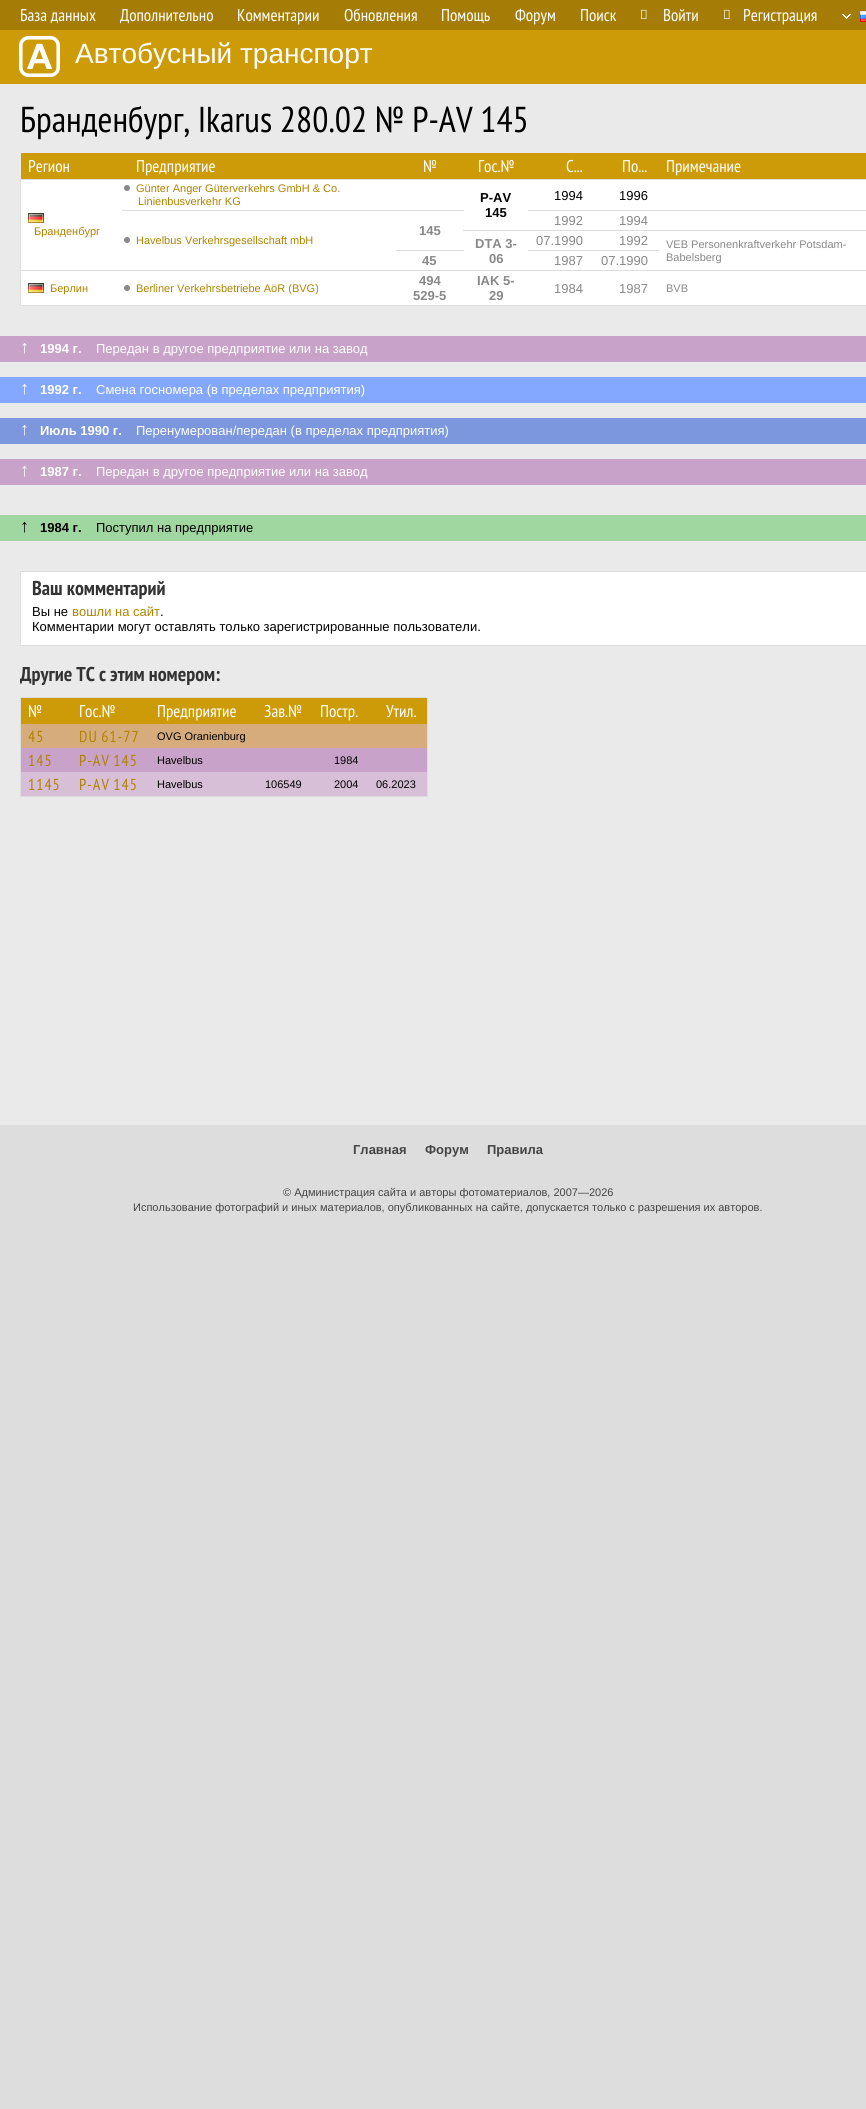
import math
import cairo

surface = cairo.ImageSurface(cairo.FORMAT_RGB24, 866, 2109)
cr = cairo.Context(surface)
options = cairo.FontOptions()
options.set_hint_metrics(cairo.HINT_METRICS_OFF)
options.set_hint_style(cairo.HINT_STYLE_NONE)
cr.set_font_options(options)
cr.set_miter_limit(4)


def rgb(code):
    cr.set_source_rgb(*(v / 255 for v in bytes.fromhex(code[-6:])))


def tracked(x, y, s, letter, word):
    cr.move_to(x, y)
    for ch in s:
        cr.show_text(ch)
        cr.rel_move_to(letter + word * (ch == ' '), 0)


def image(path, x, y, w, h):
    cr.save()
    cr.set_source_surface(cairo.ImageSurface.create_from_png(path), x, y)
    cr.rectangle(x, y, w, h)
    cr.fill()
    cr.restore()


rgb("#dddddd")
cr.paint()
rgb("#a47c06")
cr.rectangle(0, 0, 866, 30)
cr.fill()
image("img/1.png", 641, 9, 6, 10)
image("img/1.png", 724, 9, 6, 10)
image("img/2.png", 842, 14, 9, 5)
image("img/3.png", 860, 11, 6, 11)
rgb("#cd9b08")
cr.rectangle(0, 30, 866, 54)
cr.fill()
image("img/4.png", 19, 36, 41, 41)
for x, y, w, h, color in [
    (0, 84, 866, 1041, "#eaeaea"),
    (21, 153, 845, 26, "#cd9b08"),
    (21, 180, 845, 125, "#ffffff"),
    (20, 179, 846, 1, "#dddddd"),
    (20, 305, 846, 1, "#dddddd"),
    (20, 179, 1, 127, "#dddddd"),
]:
    rgb(color)
    cr.rectangle(x, y, w, h)
    cr.fill()
rgb("#888888")
cr.arc(127, 188, 3, 0, 2 * math.pi)
cr.fill()
rgb("#dddddd")
cr.rectangle(122, 210, 342, 1)
cr.fill()
cr.rectangle(528, 210, 338, 1)
cr.fill()
image("img/5.png", 28, 213, 16, 10)
cr.rectangle(396, 250, 68, 1)
cr.fill()
cr.rectangle(463, 230, 403, 1)
cr.fill()
rgb("#888888")
cr.arc(127, 240, 3, 0, 2 * math.pi)
cr.fill()
for x, y, w, h, color in [
    (528, 250, 131, 1, "#dddddd"),
    (528, 270, 338, 1, "#dddddd"),
    (20, 270, 509, 1, "#dddddd"),
]:
    rgb(color)
    cr.rectangle(x, y, w, h)
    cr.fill()
image("img/5.png", 28, 283, 16, 10)
rgb("#888888")
cr.arc(127, 288, 3, 0, 2 * math.pi)
cr.fill()
for x, y, w, h, color in [
    (0, 336, 866, 26, "#c8a2c8"),
    (0, 377, 866, 26, "#84a8ff"),
    (0, 418, 866, 26, "#7d97df"),
    (0, 459, 866, 26, "#c8a2c8"),
    (0, 515, 866, 26, "#a0d6a0"),
]:
    rgb(color)
    cr.rectangle(x, y, w, h)
    cr.fill()
rgb("#ffffff")
cr.rectangle(20.5, 571.5, 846, 74)
cr.fill_preserve()
rgb("#dddddd")
cr.set_line_width(1)
cr.stroke()
cr.rectangle(20.5, 697.5, 407, 99)
cr.stroke()
for x, y, w, h, color in [
    (21, 698, 406, 26, "#cd9b08"),
    (21, 724, 406, 24, "#d7ac7d"),
    (21, 748, 406, 24, "#c8a2c8"),
    (21, 772, 406, 24, "#d8bfd8"),
]:
    rgb(color)
    cr.rectangle(x, y, w, h)
    cr.fill()
cr.select_font_face("PT Sans Narrow")
cr.set_font_size(17)
rgb("#ffffff")
for x, y, s in [
    (20, 21, "База данных"),
    (120, 21, "Дополнительно"),
    (237, 21, "Комментарии"),
    (344, 21, "Обновления"),
    (441, 21, "Помощь"),
    (515, 21, "Форум"),
    (580, 21, "Поиск"),
    (663, 21, "Войти"),
    (743, 21, "Регистрация"),
]:
    cr.move_to(x, y)
    cr.show_text(s)
cr.select_font_face("Liberation Sans")
cr.set_font_size(28)
cr.move_to(75, 63)
cr.show_text("Автобусный транспорт")
cr.select_font_face("PT Sans Narrow")
cr.set_font_size(36)
rgb("#000000")
cr.move_to(20, 132)
cr.show_text("Бранденбург, Ikarus 280.02 № P-AV 145")
cr.set_font_size(17)
rgb("#ffffff")
for x, y, s in [
    (28, 172, "Регион"),
    (136, 172, "Предприятие"),
    (423, 172, "№"),
    (478, 172, "Гос.№"),
    (566, 172, "С..."),
    (622, 172, "По..."),
    (666, 172, "Примечание"),
]:
    cr.move_to(x, y)
    cr.show_text(s)
cr.select_font_face("Liberation Sans")
cr.set_font_size(11)
rgb("#b08300")
cr.move_to(136, 192)
cr.show_text("Günter Anger Güterverkehrs GmbH & Co.")
cr.move_to(138, 205)
cr.show_text("Linienbusverkehr KG")
cr.select_font_face("Liberation Sans", cairo.FONT_SLANT_NORMAL, cairo.FONT_WEIGHT_BOLD)
cr.set_font_size(13)
rgb("#000000")
cr.move_to(480, 202)
cr.show_text("P-AV")
cr.move_to(485, 217)
cr.show_text("145")
cr.select_font_face("Liberation Sans")
cr.move_to(554, 200)
cr.show_text("1994")
cr.move_to(619, 200)
cr.show_text("1996")
cr.set_font_size(11)
rgb("#b08300")
cr.move_to(34, 235)
cr.show_text("Бранденбург")
cr.set_font_size(13)
rgb("#888888")
cr.move_to(554, 225)
cr.show_text("1992")
cr.move_to(619, 225)
cr.show_text("1994")
cr.select_font_face("Liberation Sans", cairo.FONT_SLANT_NORMAL, cairo.FONT_WEIGHT_BOLD)
cr.move_to(419, 235)
cr.show_text("145")
cr.select_font_face("Liberation Sans")
cr.set_font_size(11)
rgb("#b08300")
cr.move_to(136, 244)
cr.show_text("Havelbus Verkehrsgesellschaft mbH")
cr.select_font_face("Liberation Sans", cairo.FONT_SLANT_NORMAL, cairo.FONT_WEIGHT_BOLD)
cr.set_font_size(13)
rgb("#888888")
cr.move_to(475, 248)
cr.show_text("DTA 3-")
cr.move_to(489, 263)
cr.show_text("06")
cr.select_font_face("Liberation Sans")
cr.move_to(536, 245)
cr.show_text("07.1990")
cr.move_to(619, 245)
cr.show_text("1992")
cr.set_font_size(11)
cr.move_to(666, 248)
cr.show_text("VEB Personenkraftverkehr Potsdam-")
cr.move_to(666, 261)
cr.show_text("Babelsberg")
cr.select_font_face("Liberation Sans", cairo.FONT_SLANT_NORMAL, cairo.FONT_WEIGHT_BOLD)
cr.set_font_size(13)
cr.move_to(422, 265)
cr.show_text("45")
cr.select_font_face("Liberation Sans")
cr.move_to(554, 265)
cr.show_text("1987")
cr.move_to(601, 265)
cr.show_text("07.1990")
cr.set_font_size(11)
rgb("#b08300")
cr.move_to(50, 292)
cr.show_text("Берлин")
cr.move_to(136, 292)
cr.show_text("Berliner Verkehrsbetriebe AöR (BVG)")
cr.select_font_face("Liberation Sans", cairo.FONT_SLANT_NORMAL, cairo.FONT_WEIGHT_BOLD)
cr.set_font_size(13)
rgb("#888888")
for x, y, s in [
    (419, 285, "494"),
    (413, 300, "529-5"),
    (477, 285, "IAK 5-"),
    (489, 300, "29"),
]:
    cr.move_to(x, y)
    cr.show_text(s)
cr.select_font_face("Liberation Sans")
cr.move_to(554, 293)
cr.show_text("1984")
cr.move_to(619, 293)
cr.show_text("1987")
cr.set_font_size(11)
cr.move_to(666, 292)
cr.show_text("BVB")
cr.set_font_size(18)
rgb("#ffffff")
cr.move_to(20, 353)
cr.show_text("↑")
cr.select_font_face("Liberation Sans", cairo.FONT_SLANT_NORMAL, cairo.FONT_WEIGHT_BOLD)
cr.set_font_size(13)
cr.move_to(40, 353)
cr.show_text("1994 г.")
cr.select_font_face("Liberation Sans")
cr.move_to(96, 353)
cr.show_text("Передан в другое предприятие или на завод")
cr.set_font_size(18)
cr.move_to(20, 394)
cr.show_text("↑")
cr.select_font_face("Liberation Sans", cairo.FONT_SLANT_NORMAL, cairo.FONT_WEIGHT_BOLD)
cr.set_font_size(13)
cr.move_to(40, 394)
cr.show_text("1992 г.")
cr.select_font_face("Liberation Sans")
cr.move_to(96, 394)
cr.show_text("Смена госномера (в пределах предприятия)")
cr.set_font_size(18)
cr.move_to(20, 435)
cr.show_text("↑")
cr.select_font_face("Liberation Sans", cairo.FONT_SLANT_NORMAL, cairo.FONT_WEIGHT_BOLD)
cr.set_font_size(13)
cr.move_to(40, 435)
cr.show_text("Июль 1990 г.")
cr.select_font_face("Liberation Sans")
cr.move_to(136, 435)
cr.show_text("Перенумерован/передан (в пределах предприятия)")
cr.set_font_size(18)
cr.move_to(20, 476)
cr.show_text("↑")
cr.select_font_face("Liberation Sans", cairo.FONT_SLANT_NORMAL, cairo.FONT_WEIGHT_BOLD)
cr.set_font_size(13)
cr.move_to(40, 476)
cr.show_text("1987 г.")
cr.select_font_face("Liberation Sans")
cr.move_to(96, 476)
cr.show_text("Передан в другое предприятие или на завод")
cr.set_font_size(18)
rgb("#000000")
cr.move_to(20, 532)
cr.show_text("↑")
cr.select_font_face("Liberation Sans", cairo.FONT_SLANT_NORMAL, cairo.FONT_WEIGHT_BOLD)
cr.set_font_size(13)
cr.move_to(40, 532)
cr.show_text("1984 г.")
cr.select_font_face("Liberation Sans")
cr.move_to(96, 532)
cr.show_text("Поступил на предприятие")
cr.select_font_face("PT Sans Narrow", cairo.FONT_SLANT_NORMAL, cairo.FONT_WEIGHT_BOLD)
cr.set_font_size(20)
rgb("#333333")
cr.move_to(32, 595)
cr.show_text("Ваш комментарий")
cr.select_font_face("Liberation Sans")
cr.set_font_size(13)
rgb("#000000")
cr.move_to(32, 616)
cr.show_text("Вы не")
rgb("#b08300")
cr.move_to(72, 616)
cr.show_text("вошли на сайт")
rgb("#000000")
cr.move_to(160, 616)
cr.show_text(".")
cr.move_to(32, 631)
cr.show_text("Комментарии могут оставлять только зарегистрированные пользователи.")
cr.select_font_face("PT Sans Narrow", cairo.FONT_SLANT_NORMAL, cairo.FONT_WEIGHT_BOLD)
cr.set_font_size(20)
rgb("#333333")
cr.move_to(20, 681)
cr.show_text("Другие ТС с этим номером:")
cr.select_font_face("PT Sans Narrow")
cr.set_font_size(17)
rgb("#ffffff")
for x, y, s in [
    (28, 717, "№"),
    (79, 717, "Гос.№"),
    (157, 717, "Предприятие"),
    (264, 717, "Зав.№"),
    (320, 717, "Постр."),
    (386, 717, "Утил."),
]:
    cr.move_to(x, y)
    cr.show_text(s)
cr.set_font_size(16)
rgb("#b08300")
tracked(28, 742, "45", 1, 0)
tracked(79, 742, "DU 61-77", 1, -1)
cr.select_font_face("Liberation Sans")
cr.set_font_size(11)
rgb("#000000")
cr.move_to(157, 740)
cr.show_text("OVG Oranienburg")
cr.select_font_face("PT Sans Narrow")
cr.set_font_size(16)
rgb("#b08300")
tracked(28, 766, "145", 1, 0)
tracked(79, 766, "P-AV 145", 1, -1)
cr.select_font_face("Liberation Sans")
cr.set_font_size(11)
rgb("#000000")
cr.move_to(157, 764)
cr.show_text("Havelbus")
cr.move_to(334, 764)
cr.show_text("1984")
cr.select_font_face("PT Sans Narrow")
cr.set_font_size(16)
rgb("#b08300")
tracked(28, 790, "1145", 1, 0)
tracked(79, 790, "P-AV 145", 1, -1)
cr.select_font_face("Liberation Sans")
cr.set_font_size(11)
rgb("#000000")
for x, y, s in [
    (157, 788, "Havelbus"),
    (265, 788, "106549"),
    (334, 788, "2004"),
    (376, 788, "06.2023"),
]:
    cr.move_to(x, y)
    cr.show_text(s)
cr.select_font_face("Liberation Sans", cairo.FONT_SLANT_NORMAL, cairo.FONT_WEIGHT_BOLD)
cr.set_font_size(13)
rgb("#444444")
for x, y, s in [
    (353, 1154, "Главная"),
    (425, 1154, "Форум"),
    (487, 1154, "Правила"),
]:
    cr.move_to(x, y)
    cr.show_text(s)
cr.select_font_face("Liberation Sans")
cr.set_font_size(11)
cr.move_to(283, 1196)
cr.show_text("© Администрация сайта и авторы фотоматериалов, 2007—2026")
cr.move_to(133, 1211)
cr.show_text("Использование фотографий и иных материалов, опубликованных на сайте, допускается только с разрешения их авторов.")
surface.write_to_png("page.png")
